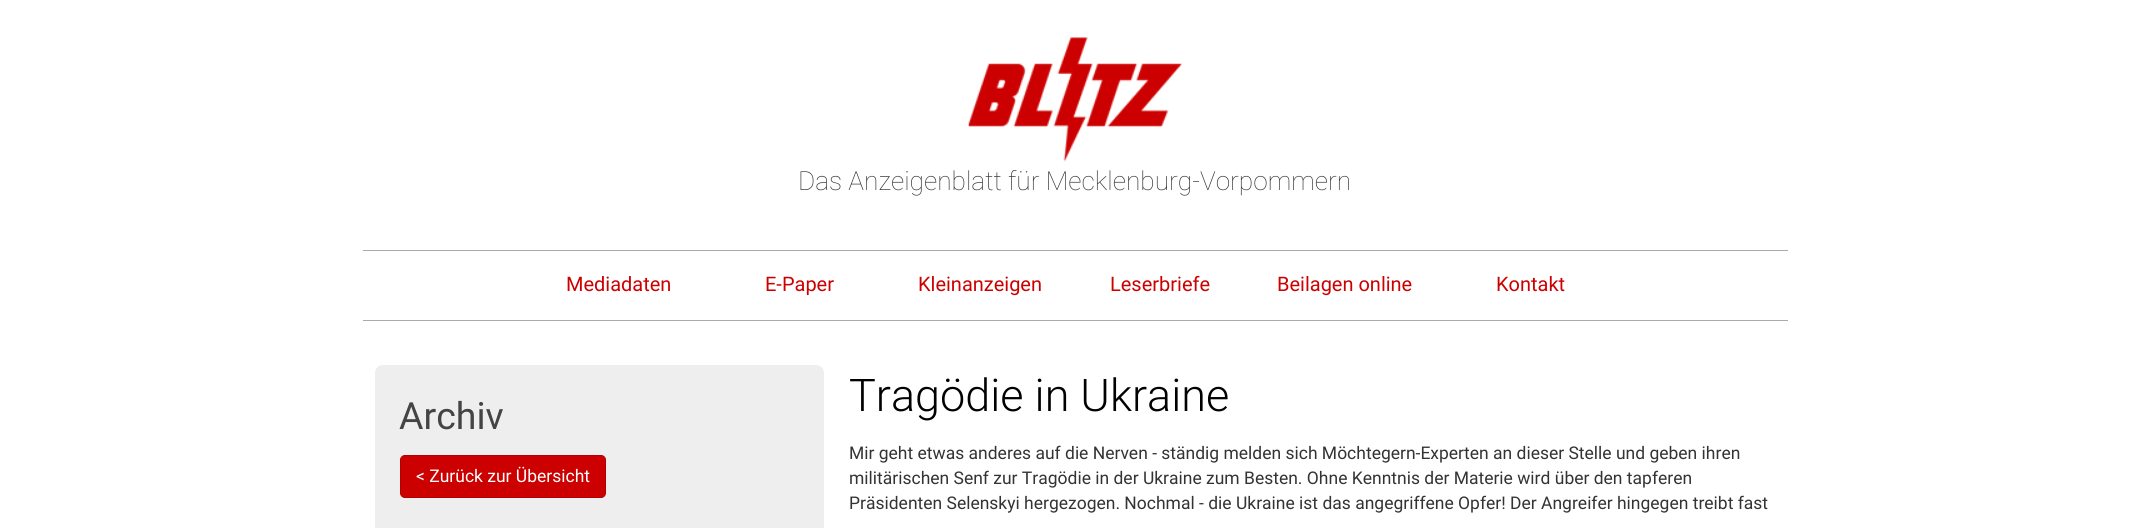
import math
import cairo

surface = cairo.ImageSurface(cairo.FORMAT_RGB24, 2148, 528)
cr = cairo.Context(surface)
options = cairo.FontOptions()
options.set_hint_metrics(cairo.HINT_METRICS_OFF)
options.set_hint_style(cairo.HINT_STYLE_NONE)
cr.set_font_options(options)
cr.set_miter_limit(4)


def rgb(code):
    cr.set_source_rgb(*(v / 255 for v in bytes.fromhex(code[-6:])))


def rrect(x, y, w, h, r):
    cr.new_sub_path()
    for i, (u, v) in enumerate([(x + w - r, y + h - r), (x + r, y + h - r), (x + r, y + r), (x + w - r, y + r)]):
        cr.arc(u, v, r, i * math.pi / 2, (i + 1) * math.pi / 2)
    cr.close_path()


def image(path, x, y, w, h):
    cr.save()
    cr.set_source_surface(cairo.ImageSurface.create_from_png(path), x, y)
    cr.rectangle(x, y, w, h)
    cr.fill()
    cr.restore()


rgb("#ffffff")
cr.paint()
image("img/1.png", 968, 37, 214, 125)
rgb("#aaaaaa")
cr.rectangle(363, 250, 1425, 1)
cr.fill()
cr.rectangle(363, 320, 1425, 1)
cr.fill()
rgb("#eeeeee")
rrect(375, 365, 449, 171, 8)
cr.fill()
rgb("#cc0000")
rrect(400.5, 455.5, 205, 42, 4.5)
cr.fill_preserve()
rgb("#b30000")
cr.set_line_width(1)
cr.stroke()
cr.select_font_face("Roboto Thin")
cr.set_font_size(26.25)
rgb("#333333")
cr.move_to(798, 190)
cr.show_text("Das Anzeigenblatt für Mecklenburg-Vorpommern")
cr.select_font_face("Roboto")
cr.set_font_size(20)
rgb("#cc0000")
for x, y, s in [
    (566, 291, "Mediadaten"),
    (765, 291, "E-Paper"),
    (918, 291, "Kleinanzeigen"),
    (1110, 291, "Leserbriefe"),
    (1277, 291, "Beilagen online"),
    (1496, 291, "Kontakt"),
]:
    cr.move_to(x, y)
    cr.show_text(s)
cr.set_font_size(37.5)
rgb("#444444")
cr.move_to(399, 429)
cr.show_text("Archiv")
cr.set_font_size(17.5)
rgb("#ffffff")
cr.move_to(416, 482)
cr.show_text("< Zurück zur Übersicht")
cr.select_font_face("Roboto Light")
cr.set_font_size(45)
rgb("#000000")
cr.move_to(849, 411)
cr.show_text("Tragödie in Ukraine")
cr.select_font_face("Roboto")
cr.set_font_size(17.5)
rgb("#333333")
for x, y, s in [
    (849, 459, "Mir geht etwas anderes auf die Nerven - ständig melden sich Möchtegern-Experten an dieser Stelle und geben ihren"),
    (849, 484, "militärischen Senf zur Tragödie in der Ukraine zum Besten. Ohne Kenntnis der Materie wird über den tapferen"),
    (849, 509, "Präsidenten Selenskyi hergezogen. Nochmal - die Ukraine ist das angegriffene Opfer! Der Angreifer hingegen treibt fast"),
]:
    cr.move_to(x, y)
    cr.show_text(s)
surface.write_to_png("page.png")
